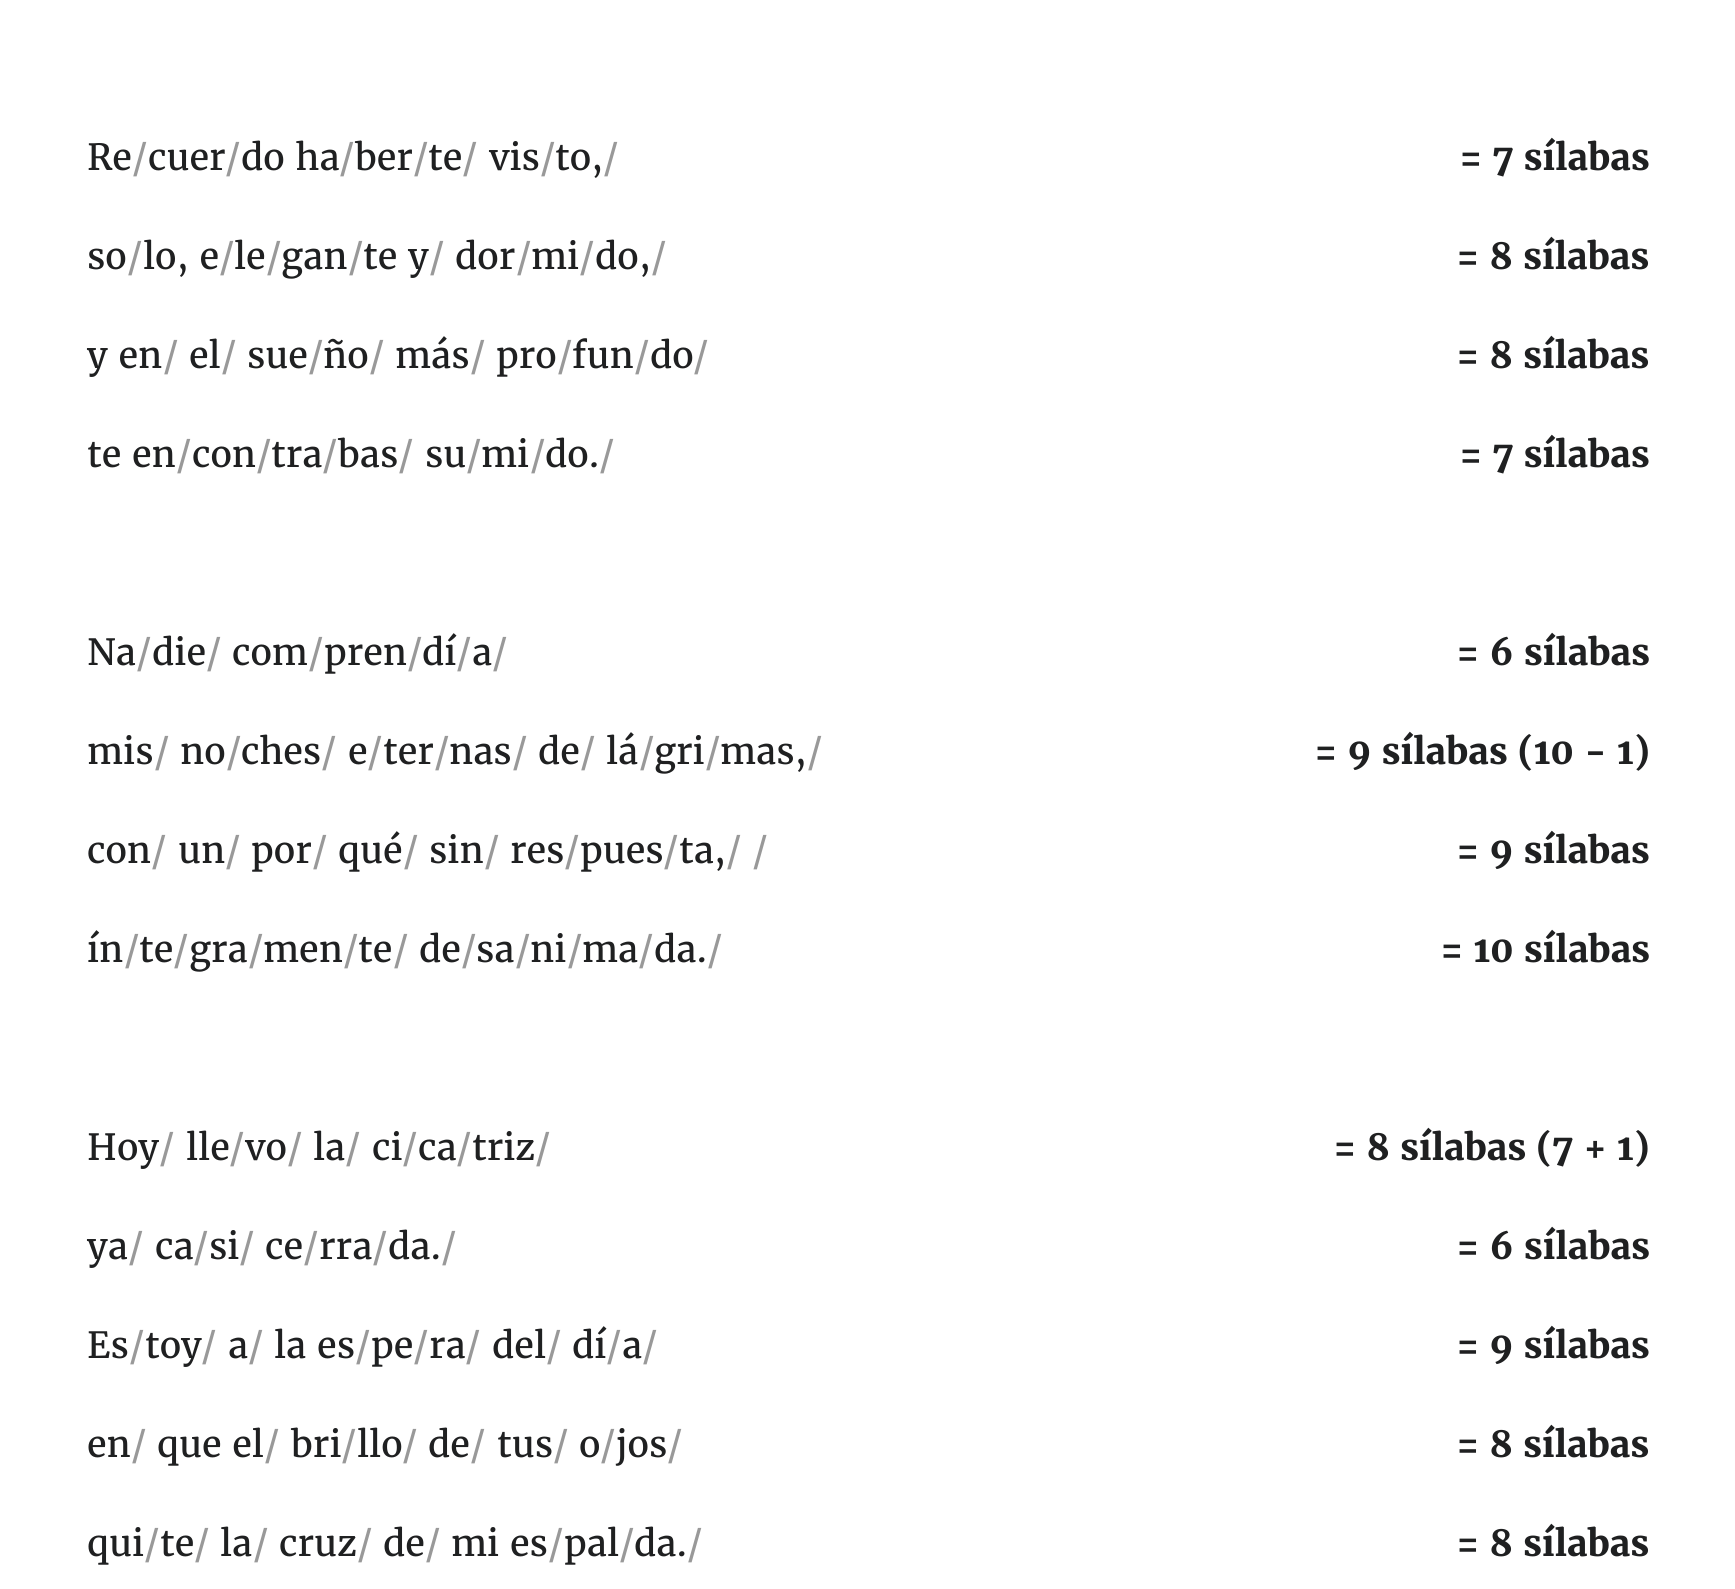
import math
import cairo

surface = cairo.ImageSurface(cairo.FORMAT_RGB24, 1735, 1589)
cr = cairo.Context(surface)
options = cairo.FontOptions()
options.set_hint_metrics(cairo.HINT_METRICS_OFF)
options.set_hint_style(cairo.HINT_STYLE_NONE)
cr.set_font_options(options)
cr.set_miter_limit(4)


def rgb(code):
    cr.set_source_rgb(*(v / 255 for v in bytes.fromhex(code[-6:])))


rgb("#ffffff")
cr.paint()
cr.select_font_face("Merriweather")
cr.set_font_size(36)
rgb("#1f2021")
cr.move_to(87, 170)
cr.show_text("Re")
rgb("#999999")
cr.move_to(132, 170)
cr.show_text("/")
rgb("#1f2021")
cr.move_to(148, 170)
cr.show_text("cuer")
rgb("#999999")
cr.move_to(225, 170)
cr.show_text("/")
rgb("#1f2021")
cr.move_to(241, 170)
cr.show_text("do ha")
rgb("#999999")
cr.move_to(339, 170)
cr.show_text("/")
rgb("#1f2021")
cr.move_to(355, 170)
cr.show_text("ber")
rgb("#999999")
cr.move_to(413, 170)
cr.show_text("/")
rgb("#1f2021")
cr.move_to(428, 170)
cr.show_text("te")
rgb("#999999")
cr.move_to(462, 170)
cr.show_text("/")
rgb("#1f2021")
cr.move_to(489, 170)
cr.show_text("vis")
rgb("#999999")
cr.move_to(540, 170)
cr.show_text("/")
rgb("#1f2021")
cr.move_to(555, 170)
cr.show_text("to,")
rgb("#999999")
cr.move_to(603, 170)
cr.show_text("/")
cr.select_font_face("Merriweather", cairo.FONT_SLANT_NORMAL, cairo.FONT_WEIGHT_BOLD)
rgb("#1f2021")
cr.move_to(1459, 170)
cr.show_text("= 7 sílabas")
cr.select_font_face("Merriweather")
cr.move_to(87, 269)
cr.show_text("so")
rgb("#999999")
cr.move_to(127, 269)
cr.show_text("/")
rgb("#1f2021")
cr.move_to(143, 269)
cr.show_text("lo, e")
rgb("#999999")
cr.move_to(219, 269)
cr.show_text("/")
rgb("#1f2021")
cr.move_to(234, 269)
cr.show_text("le")
rgb("#999999")
cr.move_to(266, 269)
cr.show_text("/")
rgb("#1f2021")
cr.move_to(281, 269)
cr.show_text("gan")
rgb("#999999")
cr.move_to(348, 269)
cr.show_text("/")
rgb("#1f2021")
cr.move_to(363, 269)
cr.show_text("te y")
rgb("#999999")
cr.move_to(429, 269)
cr.show_text("/")
rgb("#1f2021")
cr.move_to(455, 269)
cr.show_text("dor")
rgb("#999999")
cr.move_to(516, 269)
cr.show_text("/")
rgb("#1f2021")
cr.move_to(531, 269)
cr.show_text("mi")
rgb("#999999")
cr.move_to(579, 269)
cr.show_text("/")
rgb("#1f2021")
cr.move_to(595, 269)
cr.show_text("do,")
rgb("#999999")
cr.move_to(651, 269)
cr.show_text("/")
cr.select_font_face("Merriweather", cairo.FONT_SLANT_NORMAL, cairo.FONT_WEIGHT_BOLD)
rgb("#1f2021")
cr.move_to(1456, 269)
cr.show_text("= 8 sílabas")
cr.select_font_face("Merriweather")
cr.move_to(87, 368)
cr.show_text("y en")
rgb("#999999")
cr.move_to(163, 368)
cr.show_text("/")
rgb("#1f2021")
cr.move_to(189, 368)
cr.show_text("el")
rgb("#999999")
cr.move_to(221, 368)
cr.show_text("/")
rgb("#1f2021")
cr.move_to(247, 368)
cr.show_text("sue")
rgb("#999999")
cr.move_to(308, 368)
cr.show_text("/")
rgb("#1f2021")
cr.move_to(323, 368)
cr.show_text("ño")
rgb("#999999")
cr.move_to(369, 368)
cr.show_text("/")
rgb("#1f2021")
cr.move_to(395, 368)
cr.show_text("más")
rgb("#999999")
cr.move_to(470, 368)
cr.show_text("/")
rgb("#1f2021")
cr.move_to(496, 368)
cr.show_text("pro")
rgb("#999999")
cr.move_to(557, 368)
cr.show_text("/")
rgb("#1f2021")
cr.move_to(572, 368)
cr.show_text("fun")
rgb("#999999")
cr.move_to(634, 368)
cr.show_text("/")
rgb("#1f2021")
cr.move_to(650, 368)
cr.show_text("do")
rgb("#999999")
cr.move_to(693, 368)
cr.show_text("/")
cr.select_font_face("Merriweather", cairo.FONT_SLANT_NORMAL, cairo.FONT_WEIGHT_BOLD)
rgb("#1f2021")
cr.move_to(1456, 368)
cr.show_text("= 8 sílabas")
cr.select_font_face("Merriweather")
cr.move_to(87, 467)
cr.show_text("te en")
rgb("#999999")
cr.move_to(176, 467)
cr.show_text("/")
rgb("#1f2021")
cr.move_to(192, 467)
cr.show_text("con")
rgb("#999999")
cr.move_to(256, 467)
cr.show_text("/")
rgb("#1f2021")
cr.move_to(271, 467)
cr.show_text("tra")
rgb("#999999")
cr.move_to(322, 467)
cr.show_text("/")
rgb("#1f2021")
cr.move_to(338, 467)
cr.show_text("bas")
rgb("#999999")
cr.move_to(398, 467)
cr.show_text("/")
rgb("#1f2021")
cr.move_to(425, 467)
cr.show_text("su")
rgb("#999999")
cr.move_to(466, 467)
cr.show_text("/")
rgb("#1f2021")
cr.move_to(481, 467)
cr.show_text("mi")
rgb("#999999")
cr.move_to(530, 467)
cr.show_text("/")
rgb("#1f2021")
cr.move_to(545, 467)
cr.show_text("do.")
rgb("#999999")
cr.move_to(599, 467)
cr.show_text("/")
cr.select_font_face("Merriweather", cairo.FONT_SLANT_NORMAL, cairo.FONT_WEIGHT_BOLD)
rgb("#1f2021")
cr.move_to(1459, 467)
cr.show_text("= 7 sílabas")
cr.select_font_face("Merriweather")
cr.move_to(87, 665)
cr.show_text("Na")
rgb("#999999")
cr.move_to(136, 665)
cr.show_text("/")
rgb("#1f2021")
cr.move_to(152, 665)
cr.show_text("die")
rgb("#999999")
cr.move_to(206, 665)
cr.show_text("/")
rgb("#1f2021")
cr.move_to(232, 665)
cr.show_text("com")
rgb("#999999")
cr.move_to(308, 665)
cr.show_text("/")
rgb("#1f2021")
cr.move_to(324, 665)
cr.show_text("pren")
rgb("#999999")
cr.move_to(407, 665)
cr.show_text("/")
rgb("#1f2021")
cr.move_to(422, 665)
cr.show_text("dí")
rgb("#999999")
cr.move_to(456, 665)
cr.show_text("/")
rgb("#1f2021")
cr.move_to(472, 665)
cr.show_text("a")
rgb("#999999")
cr.move_to(492, 665)
cr.show_text("/")
cr.select_font_face("Merriweather", cairo.FONT_SLANT_NORMAL, cairo.FONT_WEIGHT_BOLD)
rgb("#1f2021")
cr.move_to(1456, 665)
cr.show_text("= 6 sílabas")
cr.select_font_face("Merriweather")
cr.move_to(87, 764)
cr.show_text("mis")
rgb("#999999")
cr.move_to(154, 764)
cr.show_text("/")
rgb("#1f2021")
cr.move_to(180, 764)
cr.show_text("no")
rgb("#999999")
cr.move_to(226, 764)
cr.show_text("/")
rgb("#1f2021")
cr.move_to(241, 764)
cr.show_text("ches")
rgb("#999999")
cr.move_to(321, 764)
cr.show_text("/")
rgb("#1f2021")
cr.move_to(348, 764)
cr.show_text("e")
rgb("#999999")
cr.move_to(367, 764)
cr.show_text("/")
rgb("#1f2021")
cr.move_to(383, 764)
cr.show_text("ter")
rgb("#999999")
cr.move_to(434, 764)
cr.show_text("/")
rgb("#1f2021")
cr.move_to(449, 764)
cr.show_text("nas")
rgb("#999999")
cr.move_to(512, 764)
cr.show_text("/")
rgb("#1f2021")
cr.move_to(538, 764)
cr.show_text("de")
rgb("#999999")
cr.move_to(580, 764)
cr.show_text("/")
rgb("#1f2021")
cr.move_to(606, 764)
cr.show_text("lá")
rgb("#999999")
cr.move_to(639, 764)
cr.show_text("/")
rgb("#1f2021")
cr.move_to(654, 764)
cr.show_text("gri")
rgb("#999999")
cr.move_to(705, 764)
cr.show_text("/")
rgb("#1f2021")
cr.move_to(720, 764)
cr.show_text("mas,")
rgb("#999999")
cr.move_to(807, 764)
cr.show_text("/")
cr.select_font_face("Merriweather", cairo.FONT_SLANT_NORMAL, cairo.FONT_WEIGHT_BOLD)
rgb("#1f2021")
cr.move_to(1314, 764)
cr.show_text("= 9 sílabas (10 - 1)")
cr.select_font_face("Merriweather")
cr.move_to(87, 863)
cr.show_text("con")
rgb("#999999")
cr.move_to(151, 863)
cr.show_text("/")
rgb("#1f2021")
cr.move_to(178, 863)
cr.show_text("un")
rgb("#999999")
cr.move_to(225, 863)
cr.show_text("/")
rgb("#1f2021")
cr.move_to(251, 863)
cr.show_text("por")
rgb("#999999")
cr.move_to(312, 863)
cr.show_text("/")
rgb("#1f2021")
cr.move_to(338, 863)
cr.show_text("qué")
rgb("#999999")
cr.move_to(403, 863)
cr.show_text("/")
rgb("#1f2021")
cr.move_to(429, 863)
cr.show_text("sin")
rgb("#999999")
cr.move_to(484, 863)
cr.show_text("/")
rgb("#1f2021")
cr.move_to(510, 863)
cr.show_text("res")
rgb("#999999")
cr.move_to(564, 863)
cr.show_text("/")
rgb("#1f2021")
cr.move_to(580, 863)
cr.show_text("pues")
rgb("#999999")
cr.move_to(663, 863)
cr.show_text("/")
rgb("#1f2021")
cr.move_to(679, 863)
cr.show_text("ta,")
rgb("#999999")
cr.move_to(726, 863)
cr.show_text("/ /")
cr.select_font_face("Merriweather", cairo.FONT_SLANT_NORMAL, cairo.FONT_WEIGHT_BOLD)
rgb("#1f2021")
cr.move_to(1456, 863)
cr.show_text("= 9 sílabas")
cr.select_font_face("Merriweather")
cr.move_to(87, 962)
cr.show_text("ín")
rgb("#999999")
cr.move_to(124, 962)
cr.show_text("/")
rgb("#1f2021")
cr.move_to(139, 962)
cr.show_text("te")
rgb("#999999")
cr.move_to(173, 962)
cr.show_text("/")
rgb("#1f2021")
cr.move_to(189, 962)
cr.show_text("gra")
rgb("#999999")
cr.move_to(248, 962)
cr.show_text("/")
rgb("#1f2021")
cr.move_to(263, 962)
cr.show_text("men")
rgb("#999999")
cr.move_to(343, 962)
cr.show_text("/")
rgb("#1f2021")
cr.move_to(358, 962)
cr.show_text("te")
rgb("#999999")
cr.move_to(393, 962)
cr.show_text("/")
rgb("#1f2021")
cr.move_to(419, 962)
cr.show_text("de")
rgb("#999999")
cr.move_to(461, 962)
cr.show_text("/")
rgb("#1f2021")
cr.move_to(476, 962)
cr.show_text("sa")
rgb("#999999")
cr.move_to(515, 962)
cr.show_text("/")
rgb("#1f2021")
cr.move_to(530, 962)
cr.show_text("ni")
rgb("#999999")
cr.move_to(567, 962)
cr.show_text("/")
rgb("#1f2021")
cr.move_to(582, 962)
cr.show_text("ma")
rgb("#999999")
cr.move_to(638, 962)
cr.show_text("/")
rgb("#1f2021")
cr.move_to(654, 962)
cr.show_text("da.")
rgb("#999999")
cr.move_to(707, 962)
cr.show_text("/")
cr.select_font_face("Merriweather", cairo.FONT_SLANT_NORMAL, cairo.FONT_WEIGHT_BOLD)
rgb("#1f2021")
cr.move_to(1440, 962)
cr.show_text("= 10 sílabas")
cr.select_font_face("Merriweather")
cr.move_to(87, 1160)
cr.show_text("Hoy")
rgb("#999999")
cr.move_to(159, 1160)
cr.show_text("/")
rgb("#1f2021")
cr.move_to(186, 1160)
cr.show_text("lle")
rgb("#999999")
cr.move_to(229, 1160)
cr.show_text("/")
rgb("#1f2021")
cr.move_to(245, 1160)
cr.show_text("vo")
rgb("#999999")
cr.move_to(287, 1160)
cr.show_text("/")
rgb("#1f2021")
cr.move_to(313, 1160)
cr.show_text("la")
rgb("#999999")
cr.move_to(345, 1160)
cr.show_text("/")
rgb("#1f2021")
cr.move_to(372, 1160)
cr.show_text("ci")
rgb("#999999")
cr.move_to(402, 1160)
cr.show_text("/")
rgb("#1f2021")
cr.move_to(418, 1160)
cr.show_text("ca")
rgb("#999999")
cr.move_to(456, 1160)
cr.show_text("/")
rgb("#1f2021")
cr.move_to(472, 1160)
cr.show_text("triz")
rgb("#999999")
cr.move_to(535, 1160)
cr.show_text("/")
cr.select_font_face("Merriweather", cairo.FONT_SLANT_NORMAL, cairo.FONT_WEIGHT_BOLD)
rgb("#1f2021")
cr.move_to(1333, 1160)
cr.show_text("= 8 sílabas (7 + 1)")
cr.select_font_face("Merriweather")
cr.move_to(87, 1259)
cr.show_text("ya")
rgb("#999999")
cr.move_to(128, 1259)
cr.show_text("/")
rgb("#1f2021")
cr.move_to(155, 1259)
cr.show_text("ca")
rgb("#999999")
cr.move_to(193, 1259)
cr.show_text("/")
rgb("#1f2021")
cr.move_to(209, 1259)
cr.show_text("si")
rgb("#999999")
cr.move_to(239, 1259)
cr.show_text("/")
rgb("#1f2021")
cr.move_to(265, 1259)
cr.show_text("ce")
rgb("#999999")
cr.move_to(303, 1259)
cr.show_text("/")
rgb("#1f2021")
cr.move_to(319, 1259)
cr.show_text("rra")
rgb("#999999")
cr.move_to(372, 1259)
cr.show_text("/")
rgb("#1f2021")
cr.move_to(388, 1259)
cr.show_text("da.")
rgb("#999999")
cr.move_to(441, 1259)
cr.show_text("/")
cr.select_font_face("Merriweather", cairo.FONT_SLANT_NORMAL, cairo.FONT_WEIGHT_BOLD)
rgb("#1f2021")
cr.move_to(1456, 1259)
cr.show_text("= 6 sílabas")
cr.select_font_face("Merriweather")
cr.move_to(87, 1358)
cr.show_text("Es")
rgb("#999999")
cr.move_to(129, 1358)
cr.show_text("/")
rgb("#1f2021")
cr.move_to(145, 1358)
cr.show_text("toy")
rgb("#999999")
cr.move_to(201, 1358)
cr.show_text("/")
rgb("#1f2021")
cr.move_to(228, 1358)
cr.show_text("a")
rgb("#999999")
cr.move_to(248, 1358)
cr.show_text("/")
rgb("#1f2021")
cr.move_to(274, 1358)
cr.show_text("la es")
rgb("#999999")
cr.move_to(355, 1358)
cr.show_text("/")
rgb("#1f2021")
cr.move_to(371, 1358)
cr.show_text("pe")
rgb("#999999")
cr.move_to(413, 1358)
cr.show_text("/")
rgb("#1f2021")
cr.move_to(429, 1358)
cr.show_text("ra")
rgb("#999999")
cr.move_to(465, 1358)
cr.show_text("/")
rgb("#1f2021")
cr.move_to(492, 1358)
cr.show_text("del")
rgb("#999999")
cr.move_to(546, 1358)
cr.show_text("/")
rgb("#1f2021")
cr.move_to(572, 1358)
cr.show_text("dí")
rgb("#999999")
cr.move_to(606, 1358)
cr.show_text("/")
rgb("#1f2021")
cr.move_to(622, 1358)
cr.show_text("a")
rgb("#999999")
cr.move_to(642, 1358)
cr.show_text("/")
cr.select_font_face("Merriweather", cairo.FONT_SLANT_NORMAL, cairo.FONT_WEIGHT_BOLD)
rgb("#1f2021")
cr.move_to(1456, 1358)
cr.show_text("= 9 sílabas")
cr.select_font_face("Merriweather")
cr.move_to(87, 1457)
cr.show_text("en")
rgb("#999999")
cr.move_to(131, 1457)
cr.show_text("/")
rgb("#1f2021")
cr.move_to(157, 1457)
cr.show_text("que el")
rgb("#999999")
cr.move_to(264, 1457)
cr.show_text("/")
rgb("#1f2021")
cr.move_to(291, 1457)
cr.show_text("bri")
rgb("#999999")
cr.move_to(341, 1457)
cr.show_text("/")
rgb("#1f2021")
cr.move_to(357, 1457)
cr.show_text("llo")
rgb("#999999")
cr.move_to(402, 1457)
cr.show_text("/")
rgb("#1f2021")
cr.move_to(428, 1457)
cr.show_text("de")
rgb("#999999")
cr.move_to(470, 1457)
cr.show_text("/")
rgb("#1f2021")
cr.move_to(497, 1457)
cr.show_text("tus")
rgb("#999999")
cr.move_to(553, 1457)
cr.show_text("/")
rgb("#1f2021")
cr.move_to(579, 1457)
cr.show_text("o")
rgb("#999999")
cr.move_to(600, 1457)
cr.show_text("/")
rgb("#1f2021")
cr.move_to(616, 1457)
cr.show_text("jos")
rgb("#999999")
cr.move_to(667, 1457)
cr.show_text("/")
cr.select_font_face("Merriweather", cairo.FONT_SLANT_NORMAL, cairo.FONT_WEIGHT_BOLD)
rgb("#1f2021")
cr.move_to(1456, 1457)
cr.show_text("= 8 sílabas")
cr.select_font_face("Merriweather")
cr.move_to(87, 1556)
cr.show_text("qui")
rgb("#999999")
cr.move_to(144, 1556)
cr.show_text("/")
rgb("#1f2021")
cr.move_to(160, 1556)
cr.show_text("te")
rgb("#999999")
cr.move_to(194, 1556)
cr.show_text("/")
rgb("#1f2021")
cr.move_to(220, 1556)
cr.show_text("la")
rgb("#999999")
cr.move_to(253, 1556)
cr.show_text("/")
rgb("#1f2021")
cr.move_to(279, 1556)
cr.show_text("cruz")
rgb("#999999")
cr.move_to(357, 1556)
cr.show_text("/")
rgb("#1f2021")
cr.move_to(383, 1556)
cr.show_text("de")
rgb("#999999")
cr.move_to(425, 1556)
cr.show_text("/")
rgb("#1f2021")
cr.move_to(451, 1556)
cr.show_text("mi es")
rgb("#999999")
cr.move_to(548, 1556)
cr.show_text("/")
rgb("#1f2021")
cr.move_to(564, 1556)
cr.show_text("pal")
rgb("#999999")
cr.move_to(619, 1556)
cr.show_text("/")
rgb("#1f2021")
cr.move_to(634, 1556)
cr.show_text("da.")
rgb("#999999")
cr.move_to(687, 1556)
cr.show_text("/")
cr.select_font_face("Merriweather", cairo.FONT_SLANT_NORMAL, cairo.FONT_WEIGHT_BOLD)
rgb("#1f2021")
cr.move_to(1456, 1556)
cr.show_text("= 8 sílabas")
surface.write_to_png("page.png")
